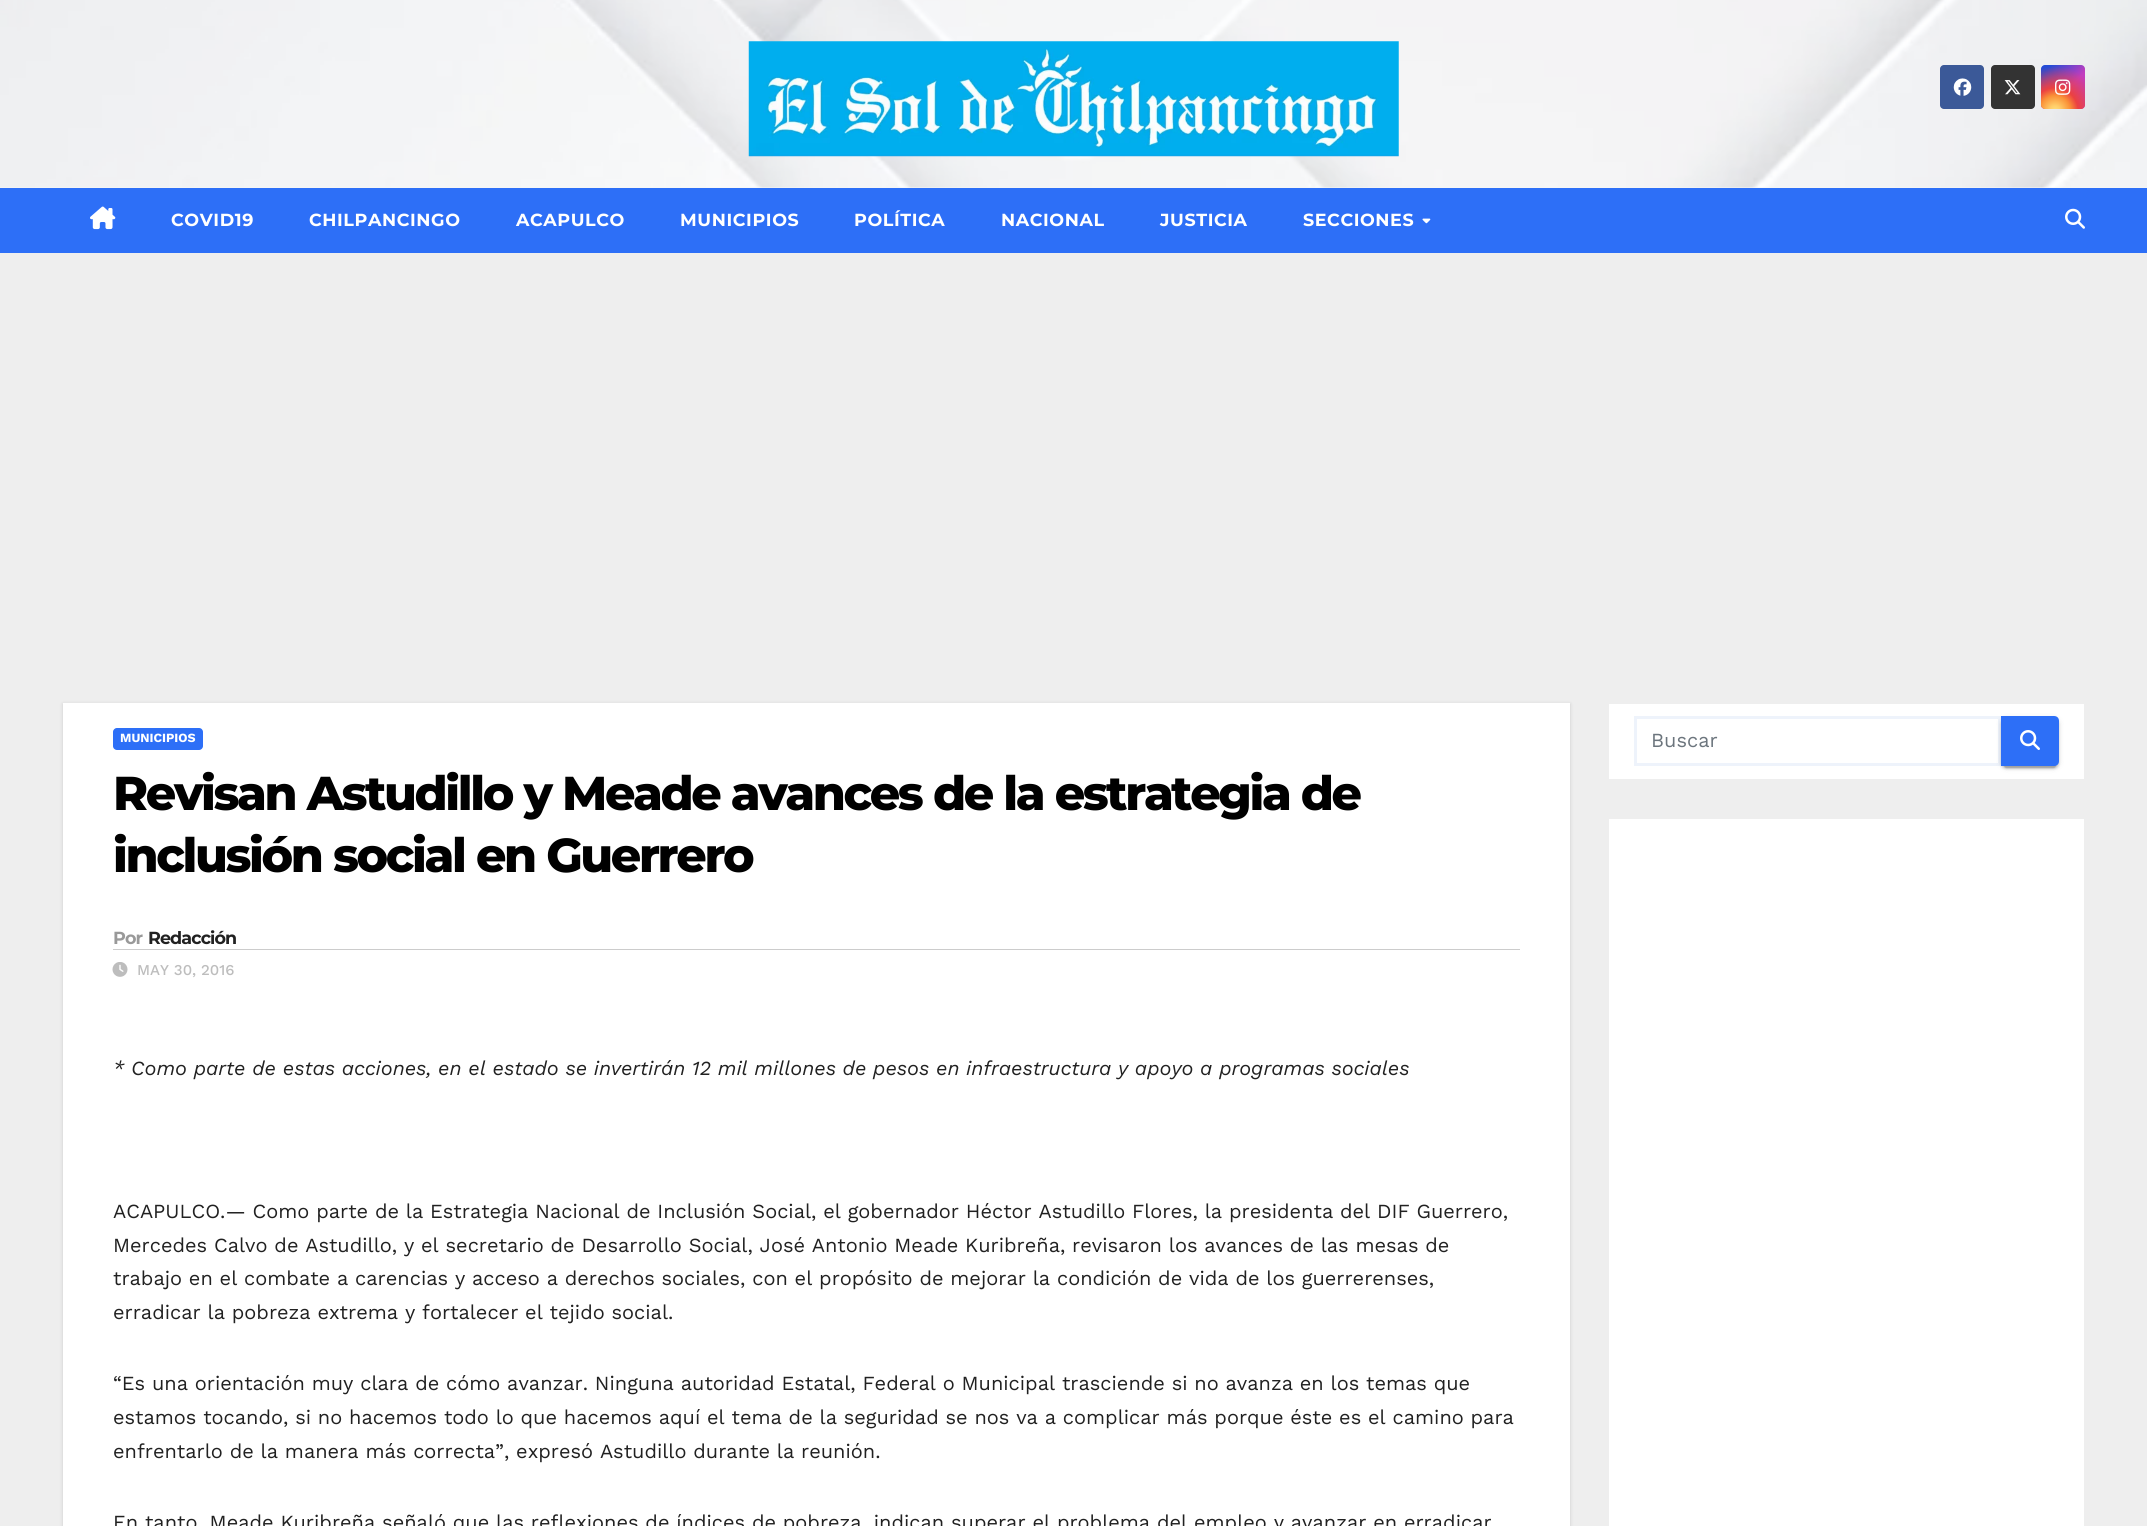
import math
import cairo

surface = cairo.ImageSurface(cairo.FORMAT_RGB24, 2147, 1526)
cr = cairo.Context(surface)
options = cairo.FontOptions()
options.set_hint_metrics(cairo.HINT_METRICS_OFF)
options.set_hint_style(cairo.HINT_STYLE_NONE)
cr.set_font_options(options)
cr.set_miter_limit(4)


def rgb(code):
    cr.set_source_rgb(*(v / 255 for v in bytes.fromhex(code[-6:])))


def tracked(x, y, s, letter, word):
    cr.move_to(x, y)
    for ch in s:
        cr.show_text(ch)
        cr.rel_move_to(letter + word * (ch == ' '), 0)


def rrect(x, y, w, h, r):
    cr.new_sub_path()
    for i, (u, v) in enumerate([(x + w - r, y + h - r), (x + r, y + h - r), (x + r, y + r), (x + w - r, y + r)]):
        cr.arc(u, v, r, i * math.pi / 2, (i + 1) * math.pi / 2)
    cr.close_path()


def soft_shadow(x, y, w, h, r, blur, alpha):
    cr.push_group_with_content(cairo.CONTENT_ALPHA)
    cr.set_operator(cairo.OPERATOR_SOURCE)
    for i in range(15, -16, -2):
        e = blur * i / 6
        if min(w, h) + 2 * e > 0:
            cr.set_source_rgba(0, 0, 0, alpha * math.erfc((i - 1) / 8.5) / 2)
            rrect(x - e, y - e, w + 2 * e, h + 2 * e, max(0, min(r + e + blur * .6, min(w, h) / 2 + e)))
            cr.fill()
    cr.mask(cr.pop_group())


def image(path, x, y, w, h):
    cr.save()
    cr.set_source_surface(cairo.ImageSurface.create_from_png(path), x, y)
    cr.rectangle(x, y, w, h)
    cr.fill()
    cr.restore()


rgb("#eeeeee")
cr.paint()
rgb("#f6f6f6")
cr.rectangle(0, 187, 2147, 1)
cr.fill()
image("img/1.png", 0, 0, 2147, 188)
image("img/2.png", 748, 41, 651, 116)
rgb("#3b5998")
rrect(1940, 65, 44, 44, 4)
cr.fill()
image("img/3.png", 1953, 78, 19, 18)
rgb("#333333")
rrect(1991, 65, 44, 44, 4)
cr.fill()
image("img/4.png", 2004, 80, 17, 15)
gradient = cairo.LinearGradient(2041, 65, 2085, 109)
gradient.add_color_stop_rgba(0.12, 0.137, 0.294, 0.843, 1)
gradient.add_color_stop_rgba(0.58, 0.765, 0.235, 0.745, 1)
cr.set_source(gradient)
rrect(2041, 65, 44, 44, 4)
cr.fill()
gradient = cairo.RadialGradient(2055, 111, 0, 2055, 111, 55)
gradient.add_color_stop_rgba(0, 1, 0.882, 0.49, 1)
gradient.add_color_stop_rgba(0.1, 1, 0.804, 0.412, 1)
gradient.add_color_stop_rgba(0.28, 0.98, 0.569, 0.216, 1)
gradient.add_color_stop_rgba(0.42, 0.922, 0.255, 0.255, 1)
gradient.add_color_stop_rgba(0.82, 0.922, 0.255, 0.255, 0)
cr.set_source(gradient)
rrect(2041, 65, 44, 44, 4)
cr.fill()
image("img/5.png", 2055, 79, 16, 16)
rgb("#2d6ff7")
cr.rectangle(0, 188, 2147, 65)
cr.fill()
image("img/6.png", 90, 206, 26, 24)
image("img/7.png", 1422, 218, 9, 6)
image("img/8.png", 2065, 208, 20, 21)
rgb("#000000")
soft_shadow(63, 704, 1507, 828, 0, 2, 0.15)
rgb("#ffffff")
cr.rectangle(63, 703, 1507, 823)
cr.fill()
rgb("#2d6ff7")
rrect(113, 728, 90, 22, 4)
cr.fill()
rgb("#cccccc")
cr.rectangle(113, 949, 1407, 1)
cr.fill()
image("img/9.png", 112, 962, 16, 15)
rgb("#ffffff")
cr.rectangle(1609, 704, 475, 75)
cr.fill()
cr.rectangle(1635.5, 717.5, 364, 47)
rgb("#eef3fb")
cr.set_line_width(3)
cr.stroke()
rgb("#000000")
soft_shadow(2001, 718, 58, 50, 5, 3, 0.12)
soft_shadow(2004, 723, 52, 45, 2.5, 0.5, 0.2)
soft_shadow(2001, 719, 58, 50, 5, 1, 0.14)
rgb("#2d6ff7")
cr.new_path()
cr.move_to(2001, 716)
cr.line_to(2054, 716)
cr.curve_to(2057, 716, 2059, 718, 2059, 721)
cr.line_to(2059, 761)
cr.curve_to(2059, 764, 2057, 766, 2054, 766)
cr.line_to(2001, 766)
cr.close_path()
cr.fill()
image("img/10.png", 2020, 730, 20, 20)
rgb("#ffffff")
cr.rectangle(1609, 819, 475, 707)
cr.fill()
cr.select_font_face("Montserrat", cairo.FONT_SLANT_NORMAL, cairo.FONT_WEIGHT_BOLD)
cr.set_font_size(17.5)
for x, y, s in [
    (171, 226, "COVID19"),
    (309, 226, "CHILPANCINGO"),
    (516, 226, "ACAPULCO"),
    (680, 226, "MUNICIPIOS"),
    (854, 226, "POLÍTICA"),
    (1001, 226, "NACIONAL"),
    (1160, 226, "JUSTICIA"),
    (1303, 226, "SECCIONES"),
]:
    tracked(x, y, s, 0.6, 0)
cr.select_font_face("Work Sans", cairo.FONT_SLANT_NORMAL, cairo.FONT_WEIGHT_BOLD)
cr.set_font_size(12.5)
cr.move_to(120, 742)
cr.show_text("MUNICIPIOS")
cr.select_font_face("Montserrat ExtraBold")
cr.set_font_size(47.5)
rgb("#000000")
tracked(113, 810, "Revisan Astudillo y Meade avances de la estrategia de", -2.38, 0)
tracked(113, 872, "inclusión social en Guerrero", -2.38, 0)
cr.select_font_face("Montserrat", cairo.FONT_SLANT_NORMAL, cairo.FONT_WEIGHT_BOLD)
cr.set_font_size(17.5)
rgb("#999999")
tracked(113, 944, "Por", -0.9, 0)
rgb("#212121")
tracked(148, 944, "Redacción", -0.9, 0)
cr.select_font_face("Work Sans Medium")
cr.set_font_size(15)
rgb("#bdbdbd")
cr.move_to(137, 975)
cr.show_text("MAY 30, 2016")
cr.select_font_face("Work Sans", cairo.FONT_SLANT_ITALIC)
cr.set_font_size(20)
rgb("#212121")
cr.move_to(113, 1075)
cr.show_text("* Como parte de estas acciones, en el estado se invertirán 12 mil millones de pesos en infraestructura y apoyo a programas sociales")
cr.select_font_face("Work Sans")
for x, y, s in [
    (113, 1218, "ACAPULCO.— Como parte de la Estrategia Nacional de Inclusión Social, el gobernador Héctor Astudillo Flores, la presidenta del DIF Guerrero,"),
    (113, 1252, "Mercedes Calvo de Astudillo, y el secretario de Desarrollo Social, José Antonio Meade Kuribreña, revisaron los avances de las mesas de"),
    (113, 1285, "trabajo en el combate a carencias y acceso a derechos sociales, con el propósito de mejorar la condición de vida de los guerrerenses,"),
    (113, 1319, "erradicar la pobreza extrema y fortalecer el tejido social."),
    (113, 1390, "“Es una orientación muy clara de cómo avanzar. Ninguna autoridad Estatal, Federal o Municipal trasciende si no avanza en los temas que"),
    (113, 1424, "estamos tocando, si no hacemos todo lo que hacemos aquí el tema de la seguridad se nos va a complicar más porque éste es el camino para"),
    (113, 1458, "enfrentarlo de la manera más correcta”, expresó Astudillo durante la reunión."),
    (113, 1529, "En tanto, Meade Kuribreña señaló que las reflexiones de índices de pobreza, indican superar el problema del empleo y avanzar en erradicar"),
]:
    cr.move_to(x, y)
    cr.show_text(s)
rgb("#6c757d")
cr.move_to(1651, 747)
cr.show_text("Buscar")
surface.write_to_png("page.png")
